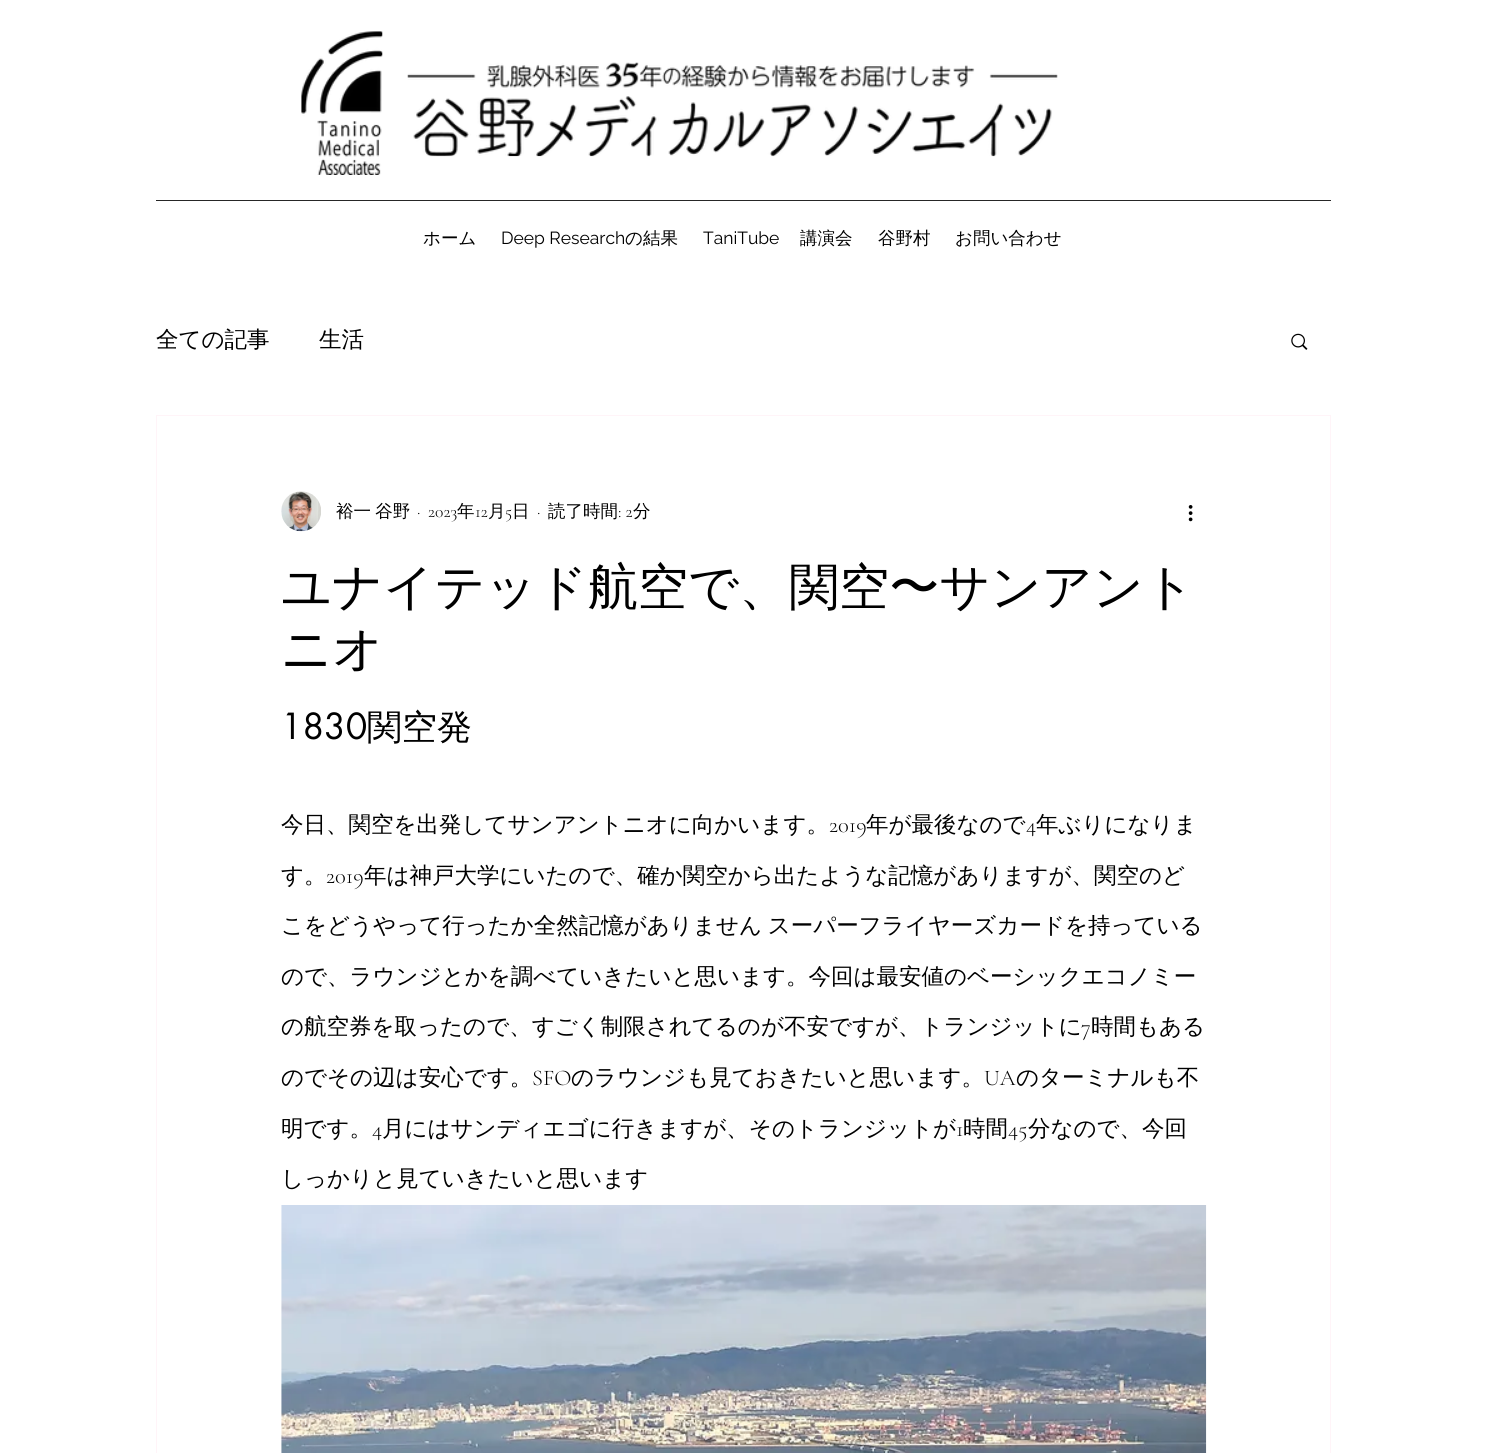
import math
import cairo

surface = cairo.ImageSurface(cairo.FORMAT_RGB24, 1486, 1453)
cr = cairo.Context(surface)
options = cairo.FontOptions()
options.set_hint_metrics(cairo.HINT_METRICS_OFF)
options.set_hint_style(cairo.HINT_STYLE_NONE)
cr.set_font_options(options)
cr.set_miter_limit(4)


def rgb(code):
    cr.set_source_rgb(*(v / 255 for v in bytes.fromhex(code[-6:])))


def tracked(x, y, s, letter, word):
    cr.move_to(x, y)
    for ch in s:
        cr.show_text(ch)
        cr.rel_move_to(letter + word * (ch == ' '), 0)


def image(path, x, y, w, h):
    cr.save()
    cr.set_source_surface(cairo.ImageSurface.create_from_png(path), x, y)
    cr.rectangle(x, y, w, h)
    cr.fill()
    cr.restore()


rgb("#ffffff")
cr.paint()
image("img/1.png", 301, 31, 82, 144)
image("img/2.png", 407, 62, 651, 95)
rgb("#262626")
cr.rectangle(156, 200, 1175, 1)
cr.fill()
image("img/3.png", 1291, 333, 17, 17)
cr.rectangle(156.5, 415.5, 1174, 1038)
rgb("#fff4f8")
cr.set_line_width(1)
cr.stroke()
image("img/4.png", 281, 491, 40, 41)
image("img/5.png", 1188, 505, 5, 17)
image("img/6.png", 281, 1205, 926, 248)
cr.select_font_face("WenQuanYi Zen Hei Medium")
cr.set_font_size(17.5)
rgb("#000000")
cr.move_to(423, 244)
cr.show_text("ホーム")
cr.select_font_face("Raleway")
cr.move_to(501, 244)
cr.show_text("Deep Research")
cr.select_font_face("WenQuanYi Zen Hei Medium")
cr.move_to(625, 244)
cr.show_text("の結果")
cr.select_font_face("Raleway")
cr.move_to(703, 244)
cr.show_text("TaniTube")
cr.select_font_face("WenQuanYi Zen Hei Medium")
for x, y, s in [
    (800, 244, "講演会"),
    (878, 244, "谷野村"),
    (955, 244, "お問い合わせ"),
]:
    cr.move_to(x, y)
    cr.show_text(s)
cr.set_font_size(22.5)
cr.move_to(156, 347)
cr.show_text("全ての記事")
cr.move_to(319, 347)
cr.show_text("生活")
cr.set_font_size(17.5)
tracked(336, 517, "裕一 谷野", 0, -1)
cr.select_font_face("Cormorant Garamond Light")
cr.move_to(417, 517)
cr.show_text("·")
cr.move_to(428, 517)
cr.show_text("2023")
cr.select_font_face("WenQuanYi Zen Hei Medium")
cr.move_to(457, 517)
cr.show_text("年")
cr.select_font_face("Cormorant Garamond Light")
cr.move_to(475, 517)
cr.show_text("12")
cr.select_font_face("WenQuanYi Zen Hei Medium")
cr.move_to(488, 517)
cr.show_text("月")
cr.select_font_face("Cormorant Garamond Light")
cr.move_to(505, 517)
cr.show_text("5")
cr.select_font_face("WenQuanYi Zen Hei Medium")
cr.move_to(512, 517)
cr.show_text("日")
cr.select_font_face("Cormorant Garamond Light")
cr.move_to(537, 517)
cr.show_text("·")
cr.select_font_face("WenQuanYi Zen Hei Medium")
cr.move_to(548, 517)
cr.show_text("読了時間")
cr.select_font_face("Cormorant Garamond Light")
cr.move_to(618, 517)
cr.show_text(": 2")
cr.select_font_face("WenQuanYi Zen Hei Medium")
cr.move_to(633, 517)
cr.show_text("分")
cr.set_font_size(50)
cr.move_to(281, 604)
cr.show_text("ユナイテッド航空で、関空〜サンアント")
cr.move_to(281, 666)
cr.show_text("ニオ")
cr.select_font_face("futura")
cr.set_font_size(35)
cr.move_to(281, 739)
cr.show_text("1830")
cr.select_font_face("WenQuanYi Zen Hei Medium")
cr.move_to(367, 739)
cr.show_text("関空発")
cr.set_font_size(22.5)
cr.move_to(281, 832)
cr.show_text("今日、関空を出発してサンアントニオに向かいます。")
cr.select_font_face("Cormorant Garamond Light")
cr.move_to(829, 832)
cr.show_text("2019")
cr.select_font_face("WenQuanYi Zen Hei Medium")
cr.move_to(866, 832)
cr.show_text("年が最後なので")
cr.select_font_face("Cormorant Garamond Light")
cr.move_to(1026, 832)
cr.show_text("4")
cr.select_font_face("WenQuanYi Zen Hei Medium")
cr.move_to(1036, 832)
cr.show_text("年ぶりになりま")
cr.move_to(281, 883)
cr.show_text("す。")
cr.select_font_face("Cormorant Garamond Light")
cr.move_to(326, 883)
cr.show_text("2019")
cr.select_font_face("WenQuanYi Zen Hei Medium")
cr.move_to(364, 883)
cr.show_text("年は神戸大学にいたので、確か関空から出たような記憶がありますが、関空のど")
tracked(281, 933, "こをどうやって行ったか全然記憶がありません スーパーフライヤーズカードを持っている", 0, -1)
cr.move_to(281, 984)
cr.show_text("ので、ラウンジとかを調べていきたいと思います。今回は最安値のベーシックエコノミー")
cr.move_to(281, 1034)
cr.show_text("の航空券を取ったので、すごく制限されてるのが不安ですが、トランジットに")
cr.select_font_face("Cormorant Garamond Light")
cr.move_to(1081, 1034)
cr.show_text("7")
cr.select_font_face("WenQuanYi Zen Hei Medium")
cr.move_to(1091, 1034)
cr.show_text("時間もある")
cr.move_to(281, 1085)
cr.show_text("のでその辺は安心です。")
cr.select_font_face("Cormorant Garamond Light")
cr.move_to(532, 1085)
cr.show_text("SFO")
cr.select_font_face("WenQuanYi Zen Hei Medium")
cr.move_to(571, 1085)
cr.show_text("のラウンジも見ておきたいと思います。")
cr.select_font_face("Cormorant Garamond Light")
cr.move_to(984, 1085)
cr.show_text("UA")
cr.select_font_face("WenQuanYi Zen Hei Medium")
cr.move_to(1016, 1085)
cr.show_text("のターミナルも不")
cr.move_to(281, 1136)
cr.show_text("明です。")
cr.select_font_face("Cormorant Garamond Light")
cr.move_to(372, 1136)
cr.show_text("4")
cr.select_font_face("WenQuanYi Zen Hei Medium")
cr.move_to(382, 1136)
cr.show_text("月にはサンディエゴに行きますが、そのトランジットが")
cr.select_font_face("Cormorant Garamond Light")
cr.move_to(956, 1136)
cr.show_text("1")
cr.select_font_face("WenQuanYi Zen Hei Medium")
cr.move_to(963, 1136)
cr.show_text("時間")
cr.select_font_face("Cormorant Garamond Light")
cr.move_to(1008, 1136)
cr.show_text("45")
cr.select_font_face("WenQuanYi Zen Hei Medium")
cr.move_to(1028, 1136)
cr.show_text("分なので、今回")
cr.move_to(281, 1186)
cr.show_text("しっかりと見ていきたいと思います")
surface.write_to_png("page.png")
